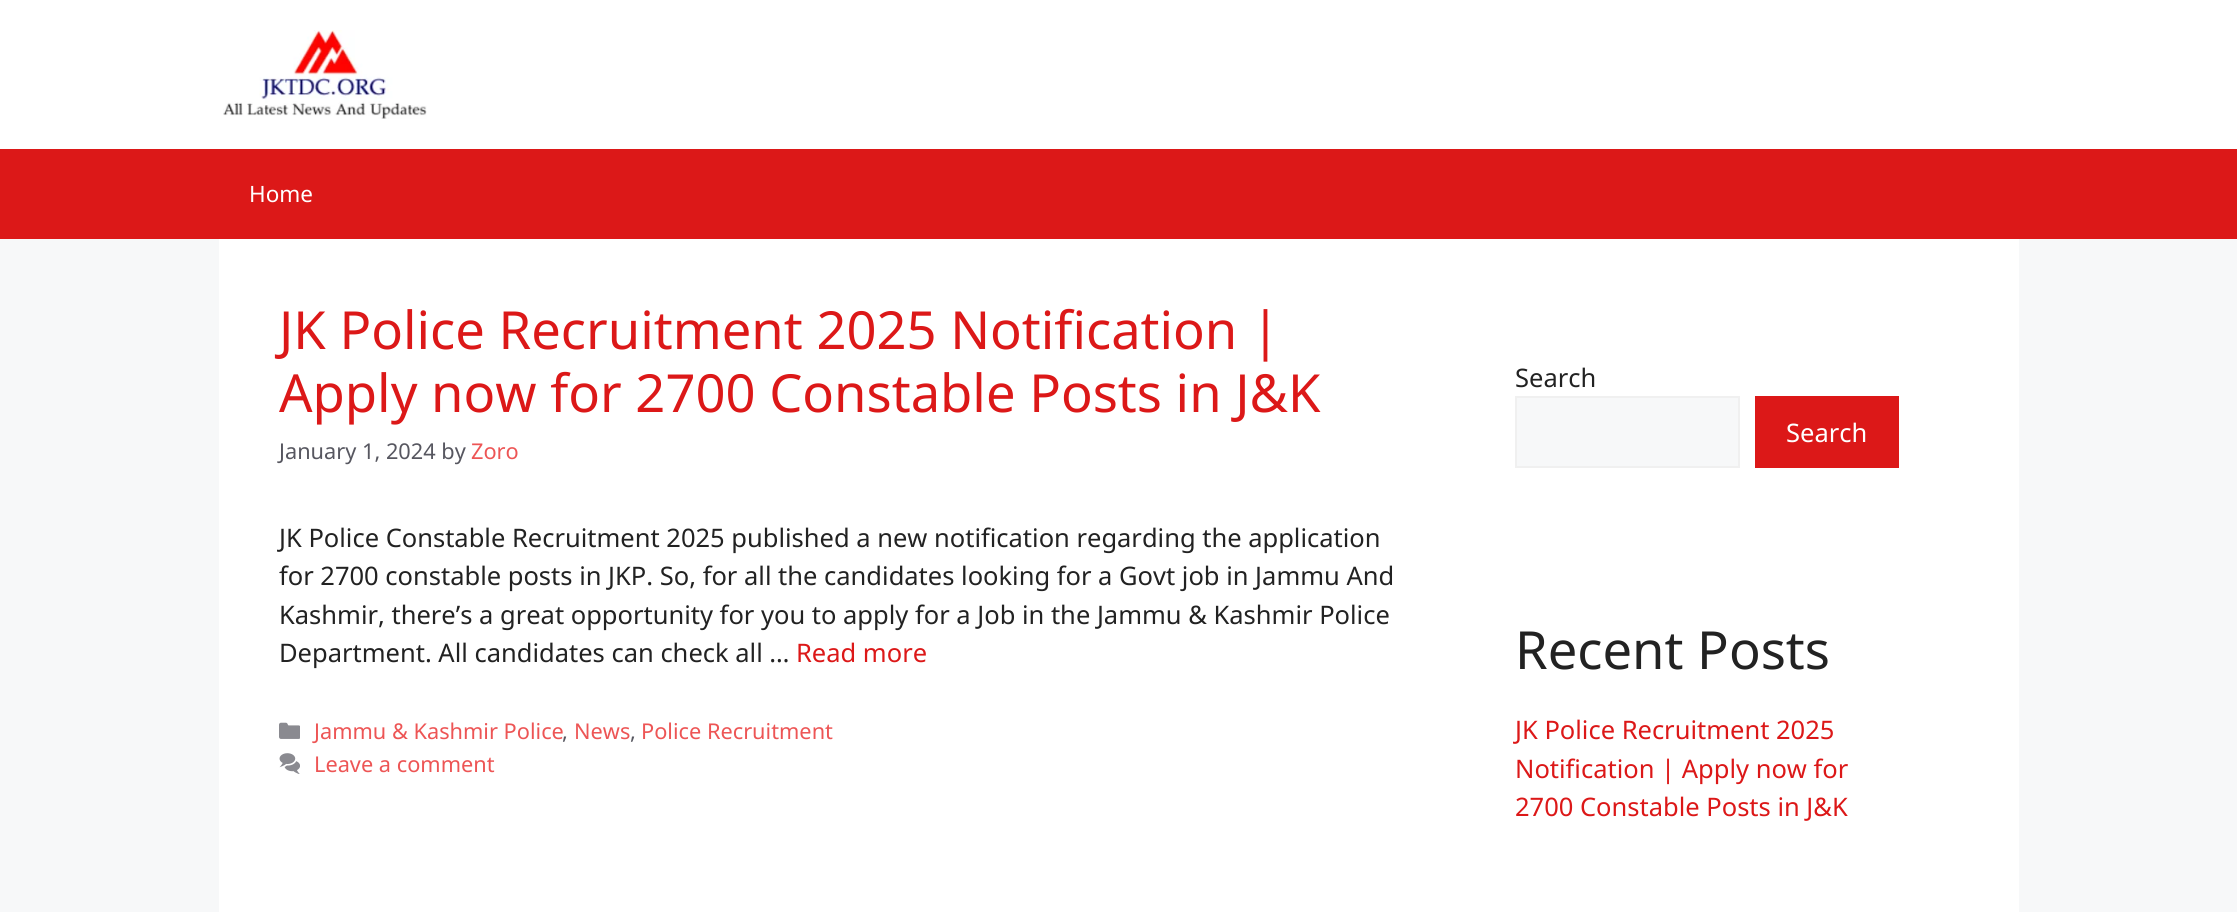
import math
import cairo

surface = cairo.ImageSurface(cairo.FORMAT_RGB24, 2237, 912)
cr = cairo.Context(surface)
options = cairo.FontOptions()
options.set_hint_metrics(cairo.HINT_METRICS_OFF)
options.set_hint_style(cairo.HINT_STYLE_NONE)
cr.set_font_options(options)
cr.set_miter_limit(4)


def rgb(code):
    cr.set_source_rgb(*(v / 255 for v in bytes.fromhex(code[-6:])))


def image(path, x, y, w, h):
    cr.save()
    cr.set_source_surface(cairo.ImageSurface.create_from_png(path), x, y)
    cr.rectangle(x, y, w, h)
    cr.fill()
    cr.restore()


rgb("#f7f8f9")
cr.paint()
rgb("#ffffff")
cr.rectangle(0, 0, 2237, 149)
cr.fill()
image("img/1.png", 223, 30, 204, 89)
rgb("#dc1818")
cr.rectangle(0, 149, 2237, 90)
cr.fill()
rgb("#ffffff")
cr.rectangle(219, 239, 1800, 673)
cr.fill()
image("img/2.png", 279, 722, 21, 17)
image("img/3.png", 279, 753, 21, 21)
rgb("#f7f8f9")
cr.rectangle(1516, 397, 223, 70)
cr.fill_preserve()
rgb("#f0f0f0")
cr.stroke()
rgb("#dc1818")
cr.rectangle(1755, 396, 144, 72)
cr.fill()
cr.select_font_face("Noto Sans")
cr.set_font_size(22.5)
rgb("#ffffff")
cr.move_to(249, 202)
cr.show_text("Home")
cr.set_font_size(52.5)
rgb("#dc1818")
cr.move_to(279, 349)
cr.show_text("JK Police Recruitment 2025 Notification |")
cr.move_to(279, 412)
cr.show_text("Apply now for 2700 Constable Posts in J&K")
cr.set_font_size(21.75)
rgb("#575760")
cr.move_to(279, 459)
cr.show_text("January 1, 2024 by")
rgb("#ed5555")
cr.move_to(471, 459)
cr.show_text("Zoro")
cr.set_font_size(25.5)
rgb("#222222")
for x, y, s in [
    (279, 547, "JK Police Constable Recruitment 2025 published a new notification regarding the application"),
    (279, 585, "for 2700 constable posts in JKP. So, for all the candidates looking for a Govt job in Jammu And"),
    (279, 624, "Kashmir, there’s a great opportunity for you to apply for a Job in the Jammu & Kashmir Police"),
    (279, 662, "Department. All candidates can check all …"),
]:
    cr.move_to(x, y)
    cr.show_text(s)
rgb("#dc1818")
cr.move_to(796, 662)
cr.show_text("Read more")
cr.set_font_size(21.75)
rgb("#ed5555")
cr.move_to(314, 739)
cr.show_text("Jammu & Kashmir Police")
rgb("#575760")
cr.move_to(562, 739)
cr.show_text(",")
rgb("#ed5555")
cr.move_to(574, 739)
cr.show_text("News")
rgb("#575760")
cr.move_to(630, 739)
cr.show_text(",")
rgb("#ed5555")
cr.move_to(641, 739)
cr.show_text("Police Recruitment")
cr.move_to(314, 772)
cr.show_text("Leave a comment")
cr.set_font_size(25.5)
rgb("#222222")
cr.move_to(1515, 387)
cr.show_text("Search")
rgb("#ffffff")
cr.move_to(1786, 442)
cr.show_text("Search")
cr.set_font_size(52.5)
rgb("#222222")
cr.move_to(1515, 669)
cr.show_text("Recent Posts")
cr.set_font_size(25.5)
rgb("#dc1818")
for x, y, s in [
    (1515, 739, "JK Police Recruitment 2025"),
    (1515, 778, "Notification | Apply now for"),
    (1515, 816, "2700 Constable Posts in J&K"),
]:
    cr.move_to(x, y)
    cr.show_text(s)
surface.write_to_png("page.png")
